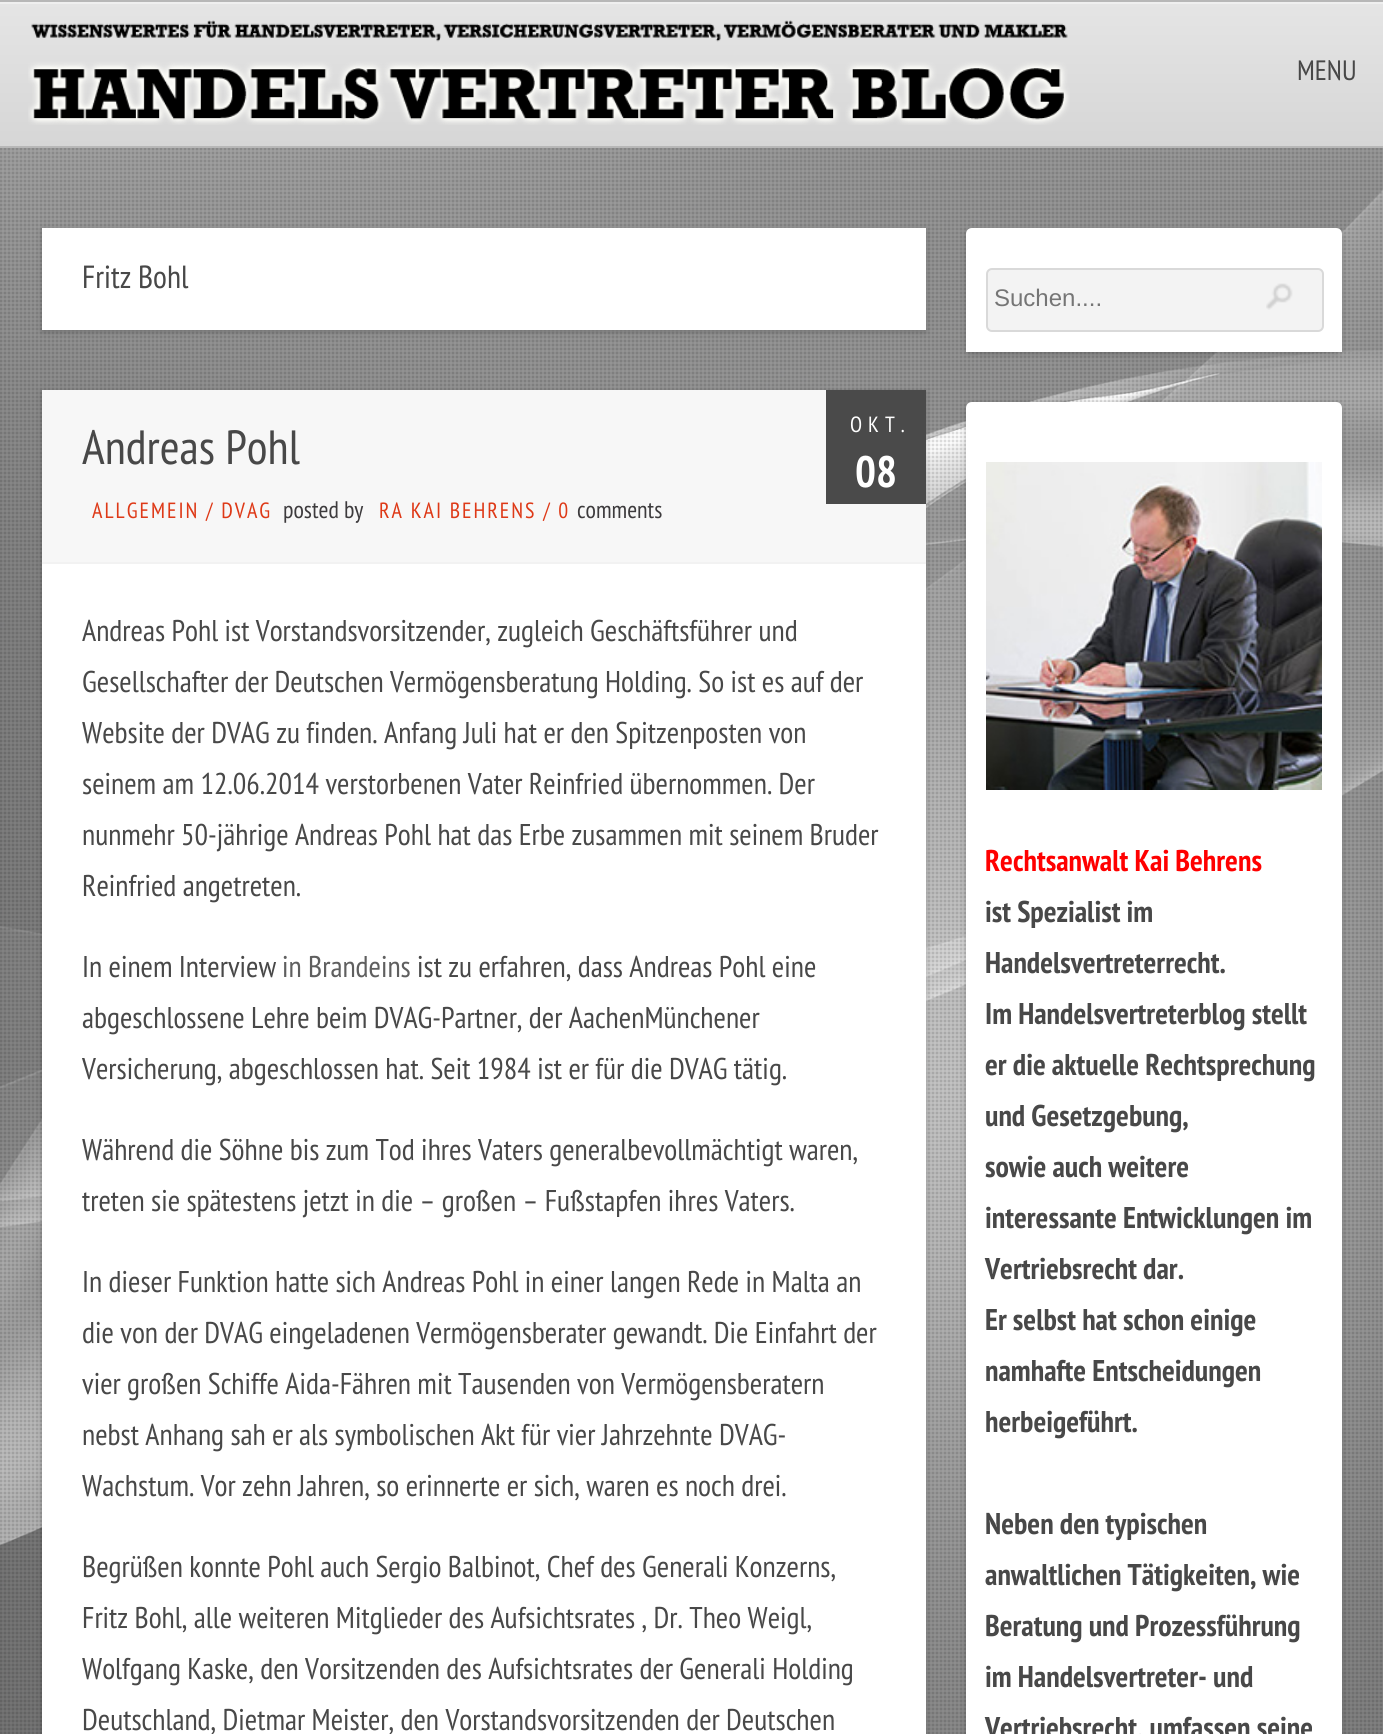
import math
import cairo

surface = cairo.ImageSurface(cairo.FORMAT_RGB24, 1383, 1734)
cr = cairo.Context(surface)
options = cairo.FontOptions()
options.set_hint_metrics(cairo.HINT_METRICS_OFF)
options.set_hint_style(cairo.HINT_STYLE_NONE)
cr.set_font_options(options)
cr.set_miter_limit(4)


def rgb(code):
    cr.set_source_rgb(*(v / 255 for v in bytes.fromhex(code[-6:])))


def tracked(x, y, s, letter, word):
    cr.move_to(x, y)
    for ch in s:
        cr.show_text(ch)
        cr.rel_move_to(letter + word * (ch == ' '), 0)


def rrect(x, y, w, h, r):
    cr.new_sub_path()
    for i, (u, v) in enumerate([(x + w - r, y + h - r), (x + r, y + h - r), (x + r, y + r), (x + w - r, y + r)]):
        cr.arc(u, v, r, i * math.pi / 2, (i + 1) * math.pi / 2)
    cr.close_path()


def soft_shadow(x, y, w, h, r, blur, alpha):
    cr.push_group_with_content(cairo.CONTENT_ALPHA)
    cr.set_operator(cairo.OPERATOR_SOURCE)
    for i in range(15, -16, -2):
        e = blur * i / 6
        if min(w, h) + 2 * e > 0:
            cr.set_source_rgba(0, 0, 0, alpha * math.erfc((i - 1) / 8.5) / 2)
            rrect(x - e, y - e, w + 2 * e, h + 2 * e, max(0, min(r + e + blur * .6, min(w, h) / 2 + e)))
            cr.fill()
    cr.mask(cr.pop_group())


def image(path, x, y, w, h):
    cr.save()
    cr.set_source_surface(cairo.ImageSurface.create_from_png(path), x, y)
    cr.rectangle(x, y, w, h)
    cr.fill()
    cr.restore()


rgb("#ffffff")
cr.paint()
gradient = cairo.LinearGradient(692, 2, 692, 146)
gradient.add_color_stop_rgba(0, 0.898, 0.898, 0.898, 1)
gradient.add_color_stop_rgba(1, 0.839, 0.839, 0.839, 1)
cr.set_source(gradient)
cr.rectangle(0, 4, 1383, 142)
cr.fill()
for x, y, w, h, color in [
    (0, 2, 1383, 2, "#efefef"),
    (0, 0, 1383, 2, "#b7b7b7"),
    (0, 146, 1383, 2, "#b7b7b7"),
]:
    rgb(color)
    cr.rectangle(x, y, w, h)
    cr.fill()
image("img/1.png", 28, 20, 1042, 105)
image("img/4.png", 0, 148, 1383, 1586)
image("img/5.png", 0, 148, 1383, 1586)
rgb("#000000")
soft_shadow(42, 230, 884, 102, 0, 3, 0.2)
rgb("#ffffff")
cr.rectangle(42, 228, 884, 102)
cr.fill()
rgb("#000000")
soft_shadow(42, 392, 884, 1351, 0, 3, 0.2)
for x, y, w, h, color in [
    (42, 564, 884, 1170, "#ffffff"),
    (42, 390, 884, 172, "#f7f7f7"),
    (42, 562, 884, 2, "#f2f2f2"),
    (826, 390, 100, 114, "#4a4a4a"),
]:
    rgb(color)
    cr.rectangle(x, y, w, h)
    cr.fill()
rgb("#000000")
soft_shadow(966, 230, 376, 124, 6, 3, 0.2)
rgb("#ffffff")
cr.new_path()
cr.move_to(972, 228)
cr.line_to(1336, 228)
cr.curve_to(1339.5, 228, 1342, 230.5, 1342, 234)
cr.line_to(1342, 352)
cr.line_to(966, 352)
cr.line_to(966, 234)
cr.curve_to(966, 230.5, 968.5, 228, 972, 228)
cr.close_path()
cr.fill()
rgb("#f3f3f3")
rrect(987, 269, 336, 62, 5)
cr.fill_preserve()
rgb("#d9d9d9")
cr.stroke()
image("img/2.png", 1266, 283, 27, 27)
rgb("#000000")
soft_shadow(966, 404, 376, 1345, 6, 3, 0.2)
rgb("#ffffff")
cr.new_path()
cr.move_to(972, 402)
cr.line_to(1336, 402)
cr.curve_to(1339.5, 402, 1342, 404.5, 1342, 408)
cr.line_to(1342, 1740)
cr.line_to(966, 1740)
cr.line_to(966, 408)
cr.curve_to(966, 404.5, 968.5, 402, 972, 402)
cr.close_path()
cr.fill()
image("img/3.png", 986, 462, 336, 328)
cr.select_font_face("PT Sans Narrow")
cr.set_font_size(28)
rgb("#484848")
cr.move_to(1297, 80)
cr.show_text("MENU")
cr.set_font_size(32)
cr.move_to(82, 288)
cr.show_text("Fritz Bohl")
cr.set_font_size(48)
cr.move_to(82, 464)
cr.show_text("Andreas Pohl")
cr.set_font_size(22)
rgb("#de3917")
tracked(92, 518, "ALLGEMEIN / DVAG", 2, 0)
cr.set_font_size(24)
rgb("#3d3b3d")
cr.move_to(283, 518)
cr.show_text("posted by")
cr.set_font_size(22)
rgb("#de3917")
tracked(379, 518, "RA KAI BEHRENS / 0", 2, 0)
cr.set_font_size(24)
rgb("#3d3b3d")
cr.move_to(577, 518)
cr.show_text("comments")
cr.set_font_size(22)
rgb("#ffffff")
tracked(850, 432, "OKT.", 6, 0)
cr.select_font_face("PT Sans Narrow", cairo.FONT_SLANT_NORMAL, cairo.FONT_WEIGHT_BOLD)
cr.set_font_size(44)
cr.move_to(855, 487)
cr.show_text("08")
cr.select_font_face("PT Sans Narrow")
cr.set_font_size(30)
rgb("#484848")
for x, y, s in [
    (82, 641, "Andreas Pohl ist Vorstandsvorsitzender, zugleich Geschäftsführer und"),
    (82, 692, "Gesellschafter der Deutschen Vermögensberatung Holding. So ist es auf der"),
    (82, 743, "Website der DVAG zu finden. Anfang Juli hat er den Spitzenposten von"),
    (82, 794, "seinem am 12.06.2014 verstorbenen Vater Reinfried übernommen. Der"),
    (82, 845, "nunmehr 50-jährige Andreas Pohl hat das Erbe zusammen mit seinem Bruder"),
    (82, 896, "Reinfried angetreten."),
    (82, 977, "In einem Interview"),
]:
    cr.move_to(x, y)
    cr.show_text(s)
rgb("#5f5f5f")
cr.move_to(282, 977)
cr.show_text("in Brandeins")
rgb("#484848")
for x, y, s in [
    (417, 977, "ist zu erfahren, dass Andreas Pohl eine"),
    (82, 1028, "abgeschlossene Lehre beim DVAG-Partner, der AachenMünchener"),
    (82, 1079, "Versicherung, abgeschlossen hat. Seit 1984 ist er für die DVAG tätig."),
    (82, 1160, "Während die Söhne bis zum Tod ihres Vaters generalbevollmächtigt waren,"),
    (82, 1211, "treten sie spätestens jetzt in die – großen – Fußstapfen ihres Vaters."),
    (82, 1292, "In dieser Funktion hatte sich Andreas Pohl in einer langen Rede in Malta an"),
    (82, 1343, "die von der DVAG eingeladenen Vermögensberater gewandt. Die Einfahrt der"),
    (82, 1394, "vier großen Schiffe Aida-Fähren mit Tausenden von Vermögensberatern"),
    (82, 1445, "nebst Anhang sah er als symbolischen Akt für vier Jahrzehnte DVAG-"),
    (82, 1496, "Wachstum. Vor zehn Jahren, so erinnerte er sich, waren es noch drei."),
    (82, 1577, "Begrüßen konnte Pohl auch Sergio Balbinot, Chef des Generali Konzerns,"),
    (82, 1628, "Fritz Bohl, alle weiteren Mitglieder des Aufsichtsrates , Dr. Theo Weigl,"),
    (82, 1679, "Wolfgang Kaske, den Vorsitzenden des Aufsichtsrates der Generali Holding"),
    (82, 1730, "Deutschland, Dietmar Meister, den Vorstandsvorsitzenden der Deutschen"),
]:
    cr.move_to(x, y)
    cr.show_text(s)
cr.select_font_face("Liberation Sans")
cr.set_font_size(24)
rgb("#757575")
cr.move_to(994, 306)
cr.show_text("Suchen....")
cr.select_font_face("PT Sans Narrow", cairo.FONT_SLANT_NORMAL, cairo.FONT_WEIGHT_BOLD)
cr.set_font_size(30)
rgb("#ff0000")
cr.move_to(985, 871)
cr.show_text("Rechtsanwalt Kai Behrens")
rgb("#484848")
for x, y, s in [
    (985, 922, "ist Spezialist im"),
    (985, 973, "Handelsvertreterrecht."),
    (985, 1024, "Im Handelsvertreterblog stellt"),
    (985, 1075, "er die aktuelle Rechtsprechung"),
    (985, 1126, "und Gesetzgebung,"),
    (985, 1177, "sowie auch weitere"),
    (985, 1228, "interessante Entwicklungen im"),
    (985, 1279, "Vertriebsrecht dar."),
    (985, 1330, "Er selbst hat schon einige"),
    (985, 1381, "namhafte Entscheidungen"),
    (985, 1432, "herbeigeführt."),
    (985, 1534, "Neben den typischen"),
    (985, 1585, "anwaltlichen Tätigkeiten, wie"),
    (985, 1636, "Beratung und Prozessführung"),
    (985, 1687, "im Handelsvertreter- und"),
    (985, 1738, "Vertriebsrecht, umfassen seine"),
]:
    cr.move_to(x, y)
    cr.show_text(s)
surface.write_to_png("page.png")
